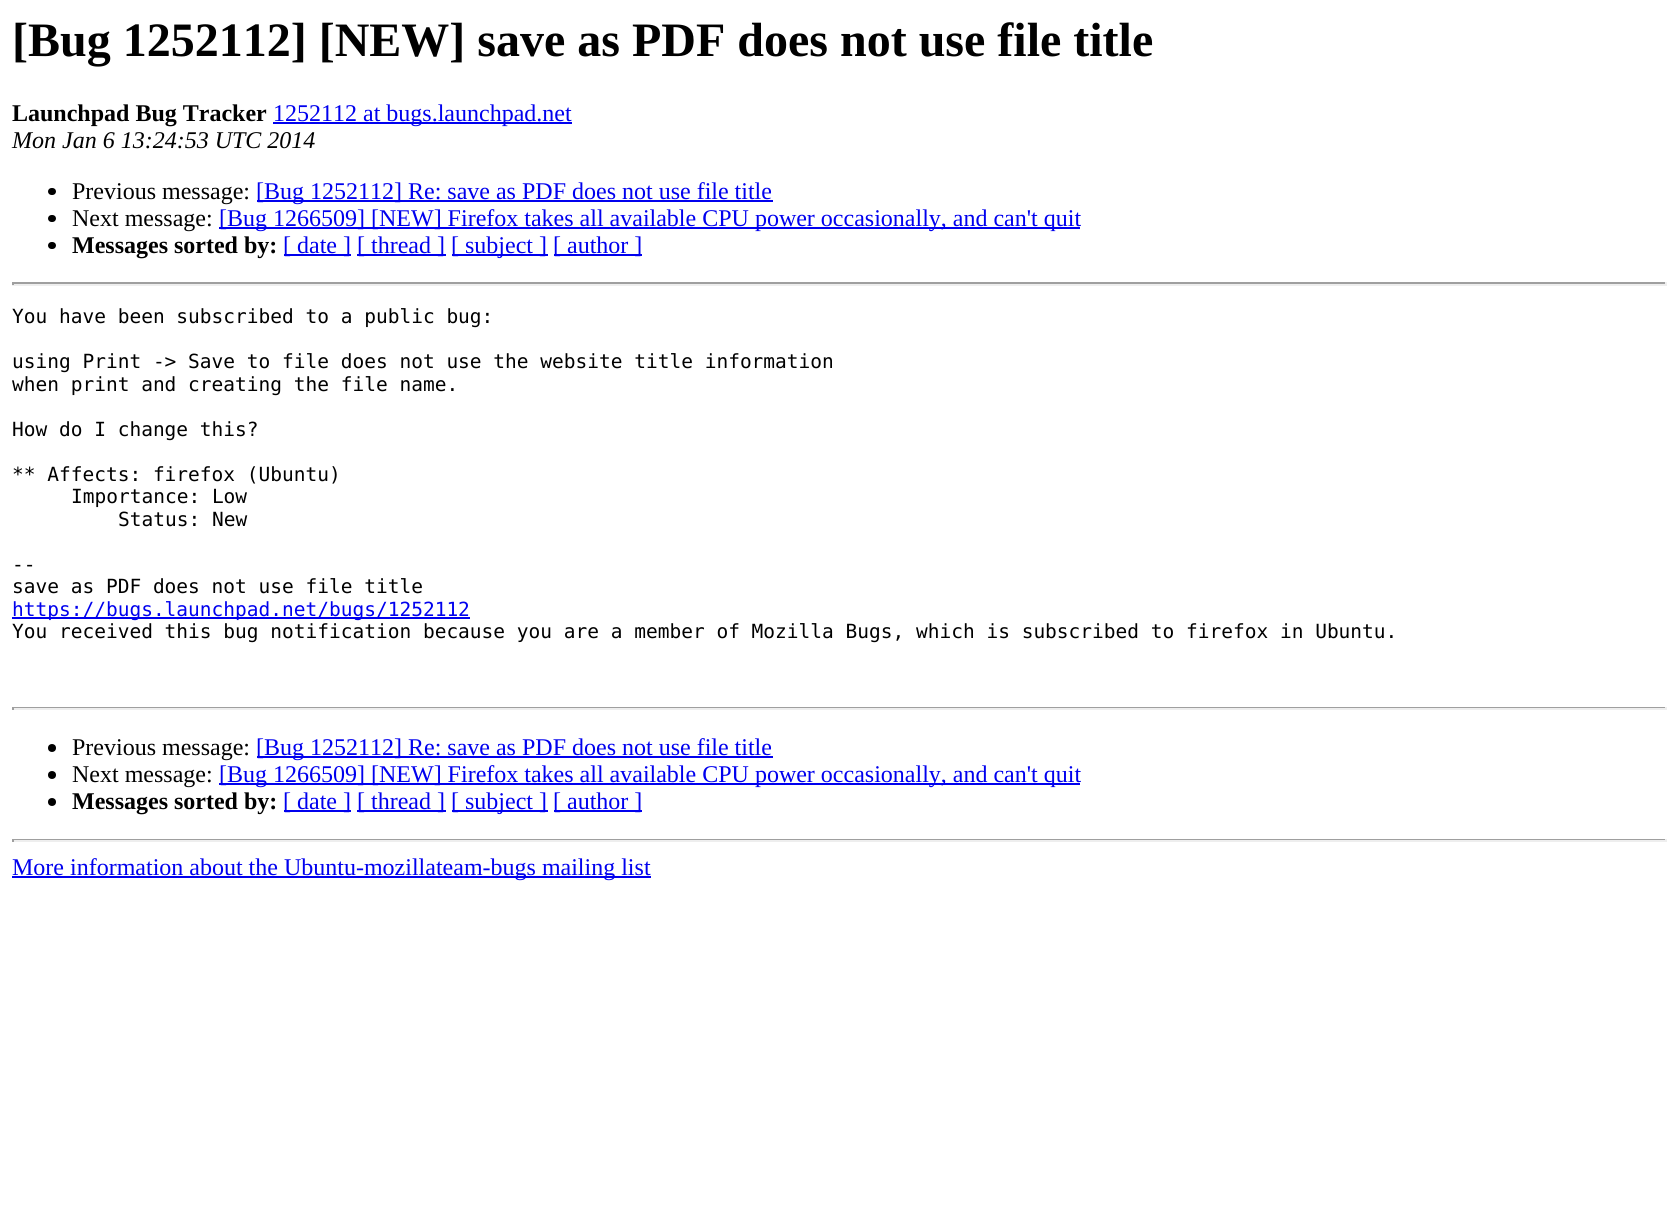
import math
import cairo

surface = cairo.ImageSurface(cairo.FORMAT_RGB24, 1678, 1219)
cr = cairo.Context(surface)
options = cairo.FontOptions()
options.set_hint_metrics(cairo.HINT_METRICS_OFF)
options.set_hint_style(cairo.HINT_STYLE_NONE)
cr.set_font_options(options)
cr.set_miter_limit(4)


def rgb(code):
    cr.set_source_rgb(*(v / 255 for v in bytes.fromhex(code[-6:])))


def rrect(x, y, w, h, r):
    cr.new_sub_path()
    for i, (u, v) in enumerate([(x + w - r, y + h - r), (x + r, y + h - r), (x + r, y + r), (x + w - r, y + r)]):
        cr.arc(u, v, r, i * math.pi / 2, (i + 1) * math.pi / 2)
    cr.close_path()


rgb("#ffffff")
cr.paint()
rgb("#0000ee")
cr.rectangle(273, 122, 299, 2)
cr.fill()
rgb("#000000")
rrect(48, 188, 8, 7, 3.5)
cr.fill()
rgb("#0000ee")
cr.rectangle(257, 200, 516, 2)
cr.fill()
rgb("#000000")
rrect(48, 215, 8, 7, 3.5)
cr.fill()
rgb("#0000ee")
cr.rectangle(219, 227, 861, 2)
cr.fill()
rgb("#000000")
rrect(48, 242, 8, 7, 3.5)
cr.fill()
for x, y, w, h, color in [
    (284, 254, 67, 2, "#0000ee"),
    (357, 254, 89, 2, "#0000ee"),
    (452, 254, 96, 2, "#0000ee"),
    (554, 254, 88, 2, "#0000ee"),
    (12, 282, 1655, 2, "#9f9f9f"),
    (1665, 282, 2, 3, "#eeeeee"),
    (12, 284, 1655, 2, "#eeeeee"),
    (12, 282, 2, 3, "#9f9f9f"),
    (12, 617, 458, 2, "#0000ee"),
    (12, 707, 1655, 1, "#9f9f9f"),
    (1665, 707, 2, 3, "#eeeeee"),
    (12, 708, 1655, 2, "#eeeeee"),
    (12, 707, 2, 3, "#9f9f9f"),
]:
    rgb(color)
    cr.rectangle(x, y, w, h)
    cr.fill()
rgb("#000000")
cr.arc(52, 748, 4, 0, 2 * math.pi)
cr.fill()
rgb("#0000ee")
cr.rectangle(257, 756, 516, 2)
cr.fill()
rgb("#000000")
cr.arc(52, 775, 4, 0, 2 * math.pi)
cr.fill()
rgb("#0000ee")
cr.rectangle(219, 783, 861, 2)
cr.fill()
rgb("#000000")
cr.arc(52, 802, 4, 0, 2 * math.pi)
cr.fill()
for x, y, w, h, color in [
    (284, 810, 67, 2, "#0000ee"),
    (357, 810, 89, 2, "#0000ee"),
    (452, 810, 96, 2, "#0000ee"),
    (554, 810, 88, 2, "#0000ee"),
    (12, 839, 1655, 1, "#9f9f9f"),
    (1665, 839, 2, 3, "#eeeeee"),
    (12, 840, 1655, 2, "#eeeeee"),
    (12, 839, 2, 3, "#9f9f9f"),
    (12, 876, 639, 2, "#0000ee"),
]:
    rgb(color)
    cr.rectangle(x, y, w, h)
    cr.fill()
cr.select_font_face("Liberation Serif", cairo.FONT_SLANT_NORMAL, cairo.FONT_WEIGHT_BOLD)
cr.set_font_size(48)
rgb("#000000")
cr.move_to(12, 56)
cr.show_text("[Bug 1252112] [NEW] save as PDF does not use file title")
cr.set_font_size(24)
cr.move_to(12, 121)
cr.show_text("Launchpad Bug Tracker")
cr.select_font_face("Liberation Serif")
rgb("#0000ee")
cr.move_to(273, 121)
cr.show_text("1252112 at bugs.launchpad.net")
cr.select_font_face("Liberation Serif", cairo.FONT_SLANT_ITALIC)
rgb("#000000")
cr.move_to(12, 148)
cr.show_text("Mon Jan 6 13:24:53 UTC 2014")
cr.select_font_face("Liberation Serif")
cr.move_to(72, 199)
cr.show_text("Previous message:")
rgb("#0000ee")
cr.move_to(256, 199)
cr.show_text("[Bug 1252112] Re: save as PDF does not use file title")
rgb("#000000")
cr.move_to(72, 226)
cr.show_text("Next message:")
rgb("#0000ee")
cr.move_to(219, 226)
cr.show_text("[Bug 1266509] [NEW] Firefox takes all available CPU power occasionally, and can't quit")
cr.select_font_face("Liberation Serif", cairo.FONT_SLANT_NORMAL, cairo.FONT_WEIGHT_BOLD)
rgb("#000000")
cr.move_to(72, 253)
cr.show_text("Messages sorted by:")
cr.select_font_face("Liberation Serif")
rgb("#0000ee")
for x, y, s in [
    (283, 253, "[ date ]"),
    (357, 253, "[ thread ]"),
    (451, 253, "[ subject ]"),
    (553, 253, "[ author ]"),
]:
    cr.move_to(x, y)
    cr.show_text(s)
cr.select_font_face("DejaVu Sans Mono")
cr.set_font_size(19.5)
rgb("#000000")
for x, y, s in [
    (12, 323, "You have been subscribed to a public bug:"),
    (12, 368, "using Print -> Save to file does not use the website title information"),
    (12, 391, "when print and creating the file name."),
    (12, 436, "How do I change this?"),
    (12, 481, "** Affects: firefox (Ubuntu)"),
    (71, 503, "Importance: Low"),
    (118, 526, "Status: New"),
    (12, 571, "--"),
    (12, 593, "save as PDF does not use file title"),
]:
    cr.move_to(x, y)
    cr.show_text(s)
rgb("#0000ee")
cr.move_to(12, 616)
cr.show_text("https://bugs.launchpad.net/bugs/1252112")
rgb("#000000")
cr.move_to(12, 638)
cr.show_text("You received this bug notification because you are a member of Mozilla Bugs, which is subscribed to firefox in Ubuntu.")
cr.select_font_face("Liberation Serif")
cr.set_font_size(24)
cr.move_to(72, 755)
cr.show_text("Previous message:")
rgb("#0000ee")
cr.move_to(256, 755)
cr.show_text("[Bug 1252112] Re: save as PDF does not use file title")
rgb("#000000")
cr.move_to(72, 782)
cr.show_text("Next message:")
rgb("#0000ee")
cr.move_to(219, 782)
cr.show_text("[Bug 1266509] [NEW] Firefox takes all available CPU power occasionally, and can't quit")
cr.select_font_face("Liberation Serif", cairo.FONT_SLANT_NORMAL, cairo.FONT_WEIGHT_BOLD)
rgb("#000000")
cr.move_to(72, 809)
cr.show_text("Messages sorted by:")
cr.select_font_face("Liberation Serif")
rgb("#0000ee")
for x, y, s in [
    (283, 809, "[ date ]"),
    (357, 809, "[ thread ]"),
    (451, 809, "[ subject ]"),
    (553, 809, "[ author ]"),
    (12, 875, "More information about the Ubuntu-mozillateam-bugs mailing list"),
]:
    cr.move_to(x, y)
    cr.show_text(s)
surface.write_to_png("page.png")
